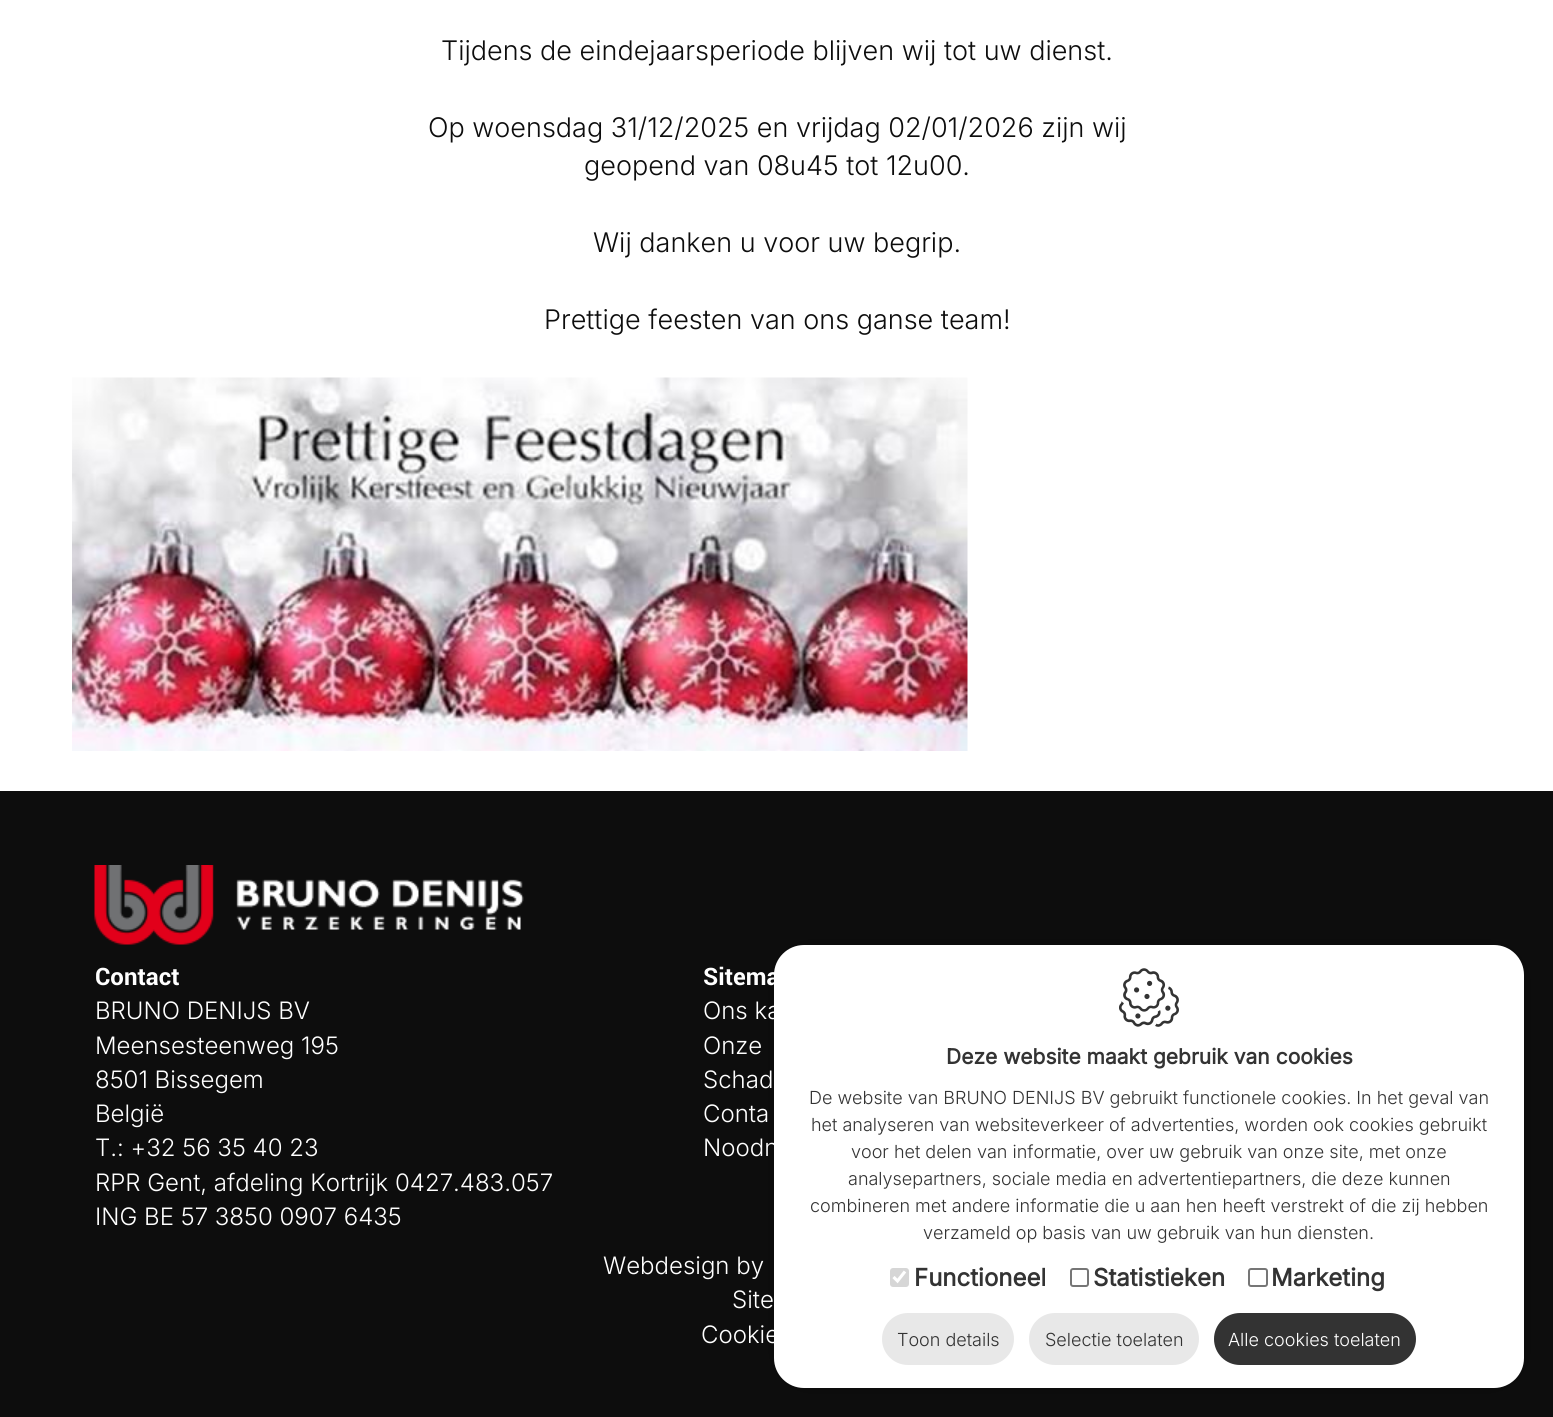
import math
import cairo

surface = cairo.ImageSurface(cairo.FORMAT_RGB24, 1553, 1417)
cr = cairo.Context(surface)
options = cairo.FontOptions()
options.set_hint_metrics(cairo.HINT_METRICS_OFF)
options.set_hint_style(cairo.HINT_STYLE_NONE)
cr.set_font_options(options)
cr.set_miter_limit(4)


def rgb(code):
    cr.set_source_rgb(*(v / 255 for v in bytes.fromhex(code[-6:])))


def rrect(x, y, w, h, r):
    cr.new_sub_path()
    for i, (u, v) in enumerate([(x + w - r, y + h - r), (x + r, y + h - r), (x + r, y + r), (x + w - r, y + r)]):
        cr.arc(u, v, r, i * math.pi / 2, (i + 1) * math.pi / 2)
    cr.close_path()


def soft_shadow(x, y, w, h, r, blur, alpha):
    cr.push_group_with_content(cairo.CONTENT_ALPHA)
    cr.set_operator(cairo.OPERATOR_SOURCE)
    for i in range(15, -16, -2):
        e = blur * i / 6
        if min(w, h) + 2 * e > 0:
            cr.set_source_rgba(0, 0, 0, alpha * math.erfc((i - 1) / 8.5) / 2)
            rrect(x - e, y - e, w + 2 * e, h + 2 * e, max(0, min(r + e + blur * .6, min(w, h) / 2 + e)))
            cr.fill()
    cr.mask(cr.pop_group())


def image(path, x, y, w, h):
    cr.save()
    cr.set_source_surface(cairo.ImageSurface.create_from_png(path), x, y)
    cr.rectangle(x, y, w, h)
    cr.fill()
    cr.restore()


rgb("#ffffff")
cr.paint()
image("img/1.png", 72, 377, 896, 374)
rgb("#0d0d0d")
cr.rectangle(0, 791, 1553, 626)
cr.fill()
rgb("#000000")
soft_shadow(776, 947, 747, 439, 29, 15, 0.15)
rgb("#ffffff")
rrect(774, 945, 750, 443, 30)
cr.fill()
image("img/2.png", 1119, 968, 60, 59)
rgb("#d6d6d6")
rrect(890, 1268, 19, 19, 3)
cr.fill()
cr.new_path()
cr.move_to(893.5, 1277)
cr.line_to(897.5, 1281)
cr.line_to(905, 1271.5)
rgb("#ffffff")
cr.set_line_width(3.1)
cr.stroke()
rrect(1071, 1269, 17, 17, 2)
rgb("#767676")
cr.set_line_width(2)
cr.stroke()
rrect(1249, 1269, 18, 17, 2)
cr.stroke()
rgb("#e8e8e8")
rrect(882, 1313, 132, 52, 26)
cr.fill()
rrect(1029, 1313, 170, 52, 26)
cr.fill()
rgb("#333333")
rrect(1214, 1313, 202, 52, 26)
cr.fill()
image("img/3.png", 94, 865, 430, 80)
cr.select_font_face("Inter Light")
cr.set_font_size(27)
rgb("#0d0d0d")
for x, y, s in [
    (441, 60, "Tijdens de eindejaarsperiode blijven wij tot uw dienst."),
    (428, 137, "Op woensdag 31/12/2025 en vrijdag 02/01/2026 zijn wij"),
    (584, 175, "geopend van 08u45 tot 12u00."),
    (593, 252, "Wij danken u voor uw begrip."),
    (544, 329, "Prettige feesten van ons ganse team!"),
]:
    cr.move_to(x, y)
    cr.show_text(s)
cr.select_font_face("Inter", cairo.FONT_SLANT_NORMAL, cairo.FONT_WEIGHT_BOLD)
cr.set_font_size(21)
rgb("#333333")
cr.move_to(946, 1064)
cr.show_text("Deze website maakt gebruik van cookies")
cr.select_font_face("Inter Light")
cr.set_font_size(18)
for x, y, s in [
    (809, 1104, "De website van BRUNO DENIJS BV gebruikt functionele cookies. In het geval van"),
    (811, 1131, "het analyseren van websiteverkeer of advertenties, worden ook cookies gebruikt"),
    (851, 1158, "voor het delen van informatie, over uw gebruik van onze site, met onze"),
    (848, 1185, "analysepartners, sociale media en advertentiepartners, die deze kunnen"),
    (810, 1212, "combineren met andere informatie die u aan hen heeft verstrekt of die zij hebben"),
    (923, 1239, "verzameld op basis van uw gebruik van hun diensten."),
]:
    cr.move_to(x, y)
    cr.show_text(s)
cr.select_font_face("Inter", cairo.FONT_SLANT_NORMAL, cairo.FONT_WEIGHT_BOLD)
cr.set_font_size(24)
for x, y, s in [
    (914, 1286, "Functioneel"),
    (1093, 1286, "Statistieken"),
    (1271, 1286, "Marketing"),
]:
    cr.move_to(x, y)
    cr.show_text(s)
cr.select_font_face("Inter Light")
cr.set_font_size(18)
cr.move_to(897, 1346)
cr.show_text("Toon details")
cr.move_to(1045, 1346)
cr.show_text("Selectie toelaten")
rgb("#ffffff")
cr.move_to(1228, 1346)
cr.show_text("Alle cookies toelaten")
cr.select_font_face("Roboto", cairo.FONT_SLANT_NORMAL, cairo.FONT_WEIGHT_BOLD)
cr.set_font_size(24)
cr.move_to(95, 985)
cr.show_text("Contact")
cr.select_font_face("Inter Light")
for x, y, s in [
    (95, 1019, "BRUNO DENIJS BV"),
    (95, 1054, "Meensesteenweg 195"),
    (95, 1088, "8501 Bissegem"),
    (95, 1122, "België"),
    (95, 1156, "T.: +32 56 35 40 23"),
    (95, 1191, "RPR Gent, afdeling Kortrijk 0427.483.057"),
    (95, 1225, "ING BE 57 3850 0907 6435"),
]:
    cr.move_to(x, y)
    cr.show_text(s)
cr.select_font_face("Roboto", cairo.FONT_SLANT_NORMAL, cairo.FONT_WEIGHT_BOLD)
cr.move_to(703, 985)
cr.show_text("Sitema")
cr.select_font_face("Inter Light")
for x, y, s in [
    (703, 1019, "Ons ka"),
    (703, 1054, "Onze"),
    (703, 1088, "Schad"),
    (703, 1122, "Conta"),
    (703, 1156, "Noodn"),
    (603, 1274, "Webdesign by"),
    (732, 1308, "Site"),
    (701, 1343, "Cookie"),
]:
    cr.move_to(x, y)
    cr.show_text(s)
surface.write_to_png("page.png")
